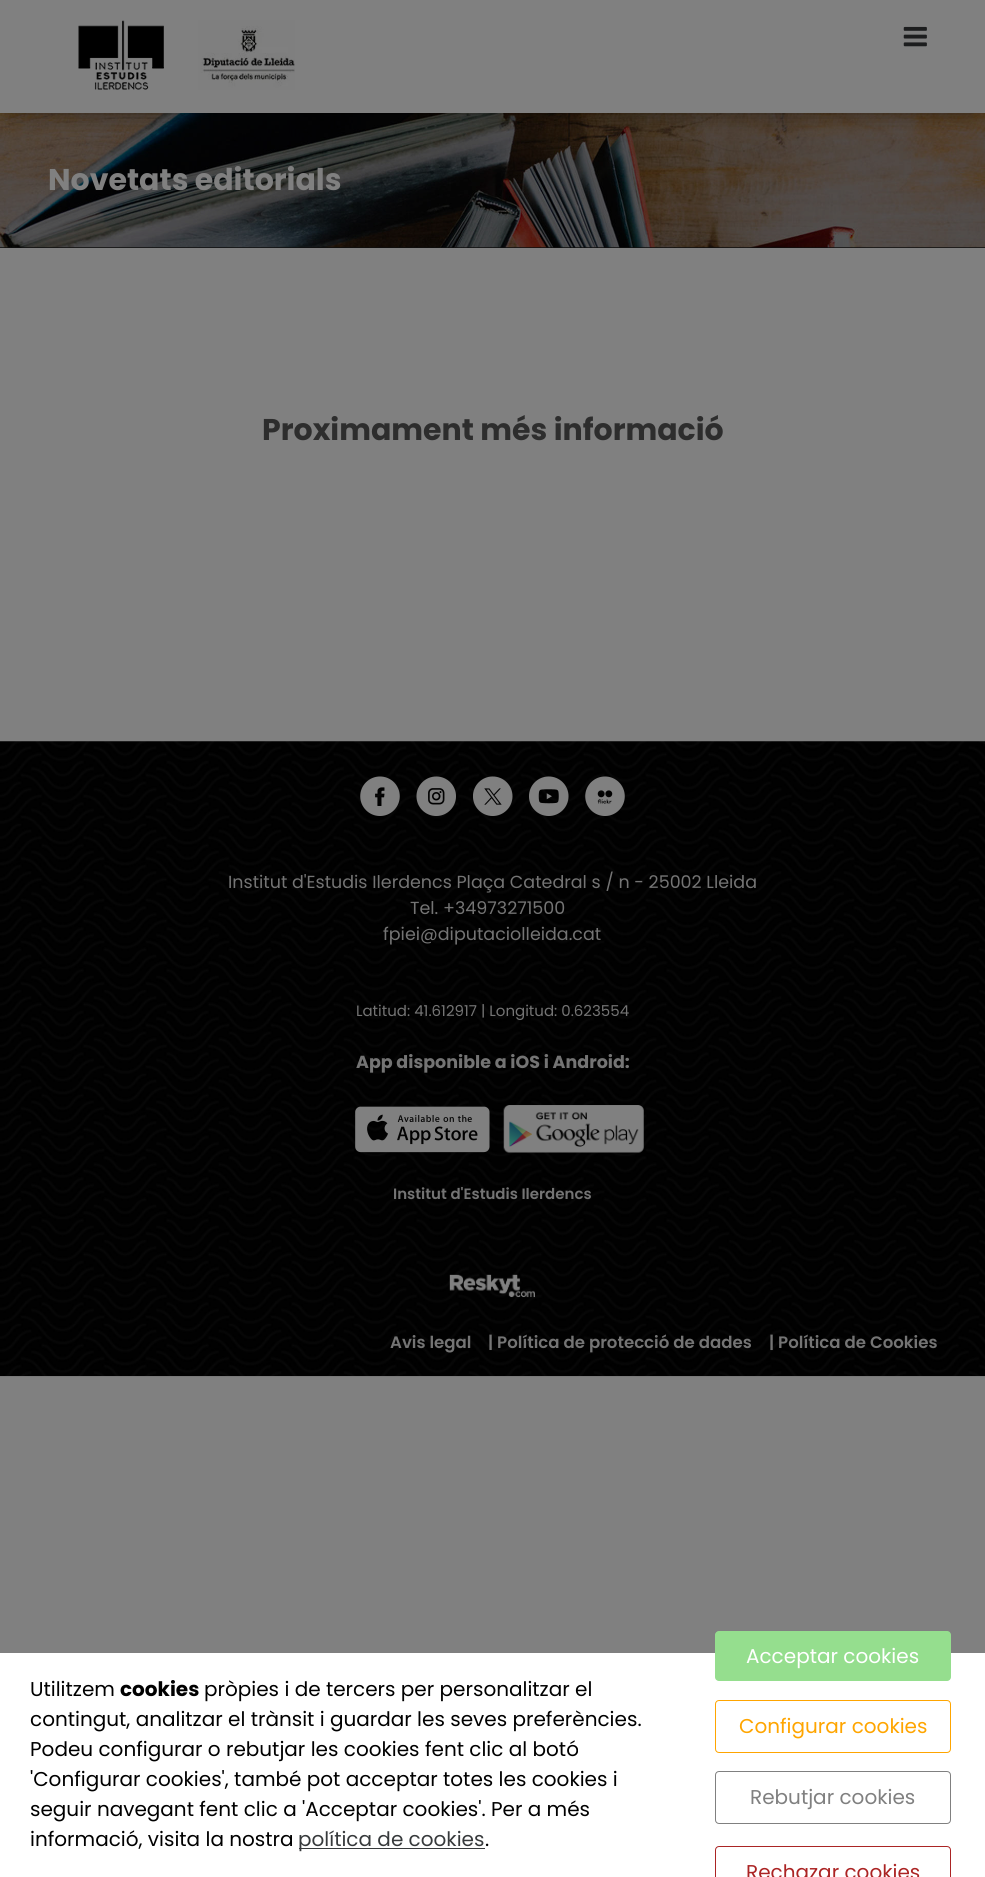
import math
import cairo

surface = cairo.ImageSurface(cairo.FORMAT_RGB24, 985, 1877)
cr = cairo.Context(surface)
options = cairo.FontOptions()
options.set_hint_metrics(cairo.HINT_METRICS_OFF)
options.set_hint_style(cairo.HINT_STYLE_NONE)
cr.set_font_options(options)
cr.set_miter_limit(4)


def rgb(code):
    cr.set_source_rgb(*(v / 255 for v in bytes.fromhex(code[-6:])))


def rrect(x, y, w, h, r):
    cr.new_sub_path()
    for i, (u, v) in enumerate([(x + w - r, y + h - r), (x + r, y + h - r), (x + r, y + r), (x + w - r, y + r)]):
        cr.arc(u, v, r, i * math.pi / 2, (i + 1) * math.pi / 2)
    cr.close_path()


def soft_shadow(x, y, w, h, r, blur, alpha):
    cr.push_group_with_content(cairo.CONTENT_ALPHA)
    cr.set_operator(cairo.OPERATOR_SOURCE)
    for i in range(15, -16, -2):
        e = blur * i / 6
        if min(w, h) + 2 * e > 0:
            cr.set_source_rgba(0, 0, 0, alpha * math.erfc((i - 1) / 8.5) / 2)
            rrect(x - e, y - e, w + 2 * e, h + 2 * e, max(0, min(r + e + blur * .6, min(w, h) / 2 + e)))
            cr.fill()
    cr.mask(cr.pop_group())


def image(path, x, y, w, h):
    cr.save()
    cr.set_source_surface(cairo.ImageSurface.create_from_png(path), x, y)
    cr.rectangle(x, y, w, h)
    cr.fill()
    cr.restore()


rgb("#808080")
cr.paint()
rgb("#0e0e0e")
cr.rectangle(0, 247, 985, 1)
cr.fill()
image("img/3.png", 0, 113, 985, 135)
rgb("#000000")
soft_shadow(11, 15, 963, 90, 0, 12, 0.75)
rgb("#808080")
cr.rectangle(0, 0, 985, 113)
cr.fill()
image("img/1.png", 78, 20, 217, 70)
image("img/2.png", 903, 26, 24, 21)
image("img/4.png", 0, 741, 985, 636)
image("img/5.png", 360, 776, 40, 40)
image("img/6.png", 416, 776, 40, 40)
image("img/7.png", 473, 776, 40, 40)
image("img/8.png", 529, 776, 40, 40)
image("img/9.png", 585, 776, 40, 40)
image("img/10.png", 355, 1106, 135, 47)
image("img/11.png", 503, 1105, 141, 48)
image("img/12.png", 449, 1274, 86, 24)
rgb("#ffffff")
cr.rectangle(0, 1653, 985, 224)
cr.fill()
rgb("#373a3c")
cr.rectangle(299, 1848, 186, 1)
cr.fill()
rgb("#95de8e")
rrect(715, 1631, 236, 50, 4)
cr.fill()
rrect(715.5, 1700.5, 235, 52, 3.5)
rgb("#ffa500")
cr.set_line_width(1)
cr.stroke()
rrect(715.5, 1771.5, 235, 52, 3.5)
rgb("#808080")
cr.stroke()
rrect(715.5, 1846.5, 235, 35, 3.5)
rgb("#ab2424")
cr.stroke()
cr.select_font_face("Poppins", cairo.FONT_SLANT_NORMAL, cairo.FONT_WEIGHT_BOLD)
cr.set_font_size(30)
rgb("#808080")
cr.move_to(48, 190)
cr.show_text("Novetats editorials")
rgb("#2d2d2d")
cr.move_to(262, 440)
cr.show_text("Proximament més informació")
cr.select_font_face("Poppins")
cr.set_font_size(17.5)
rgb("#747474")
for x, y, s in [
    (228, 888, "Institut d'Estudis Ilerdencs Plaça Catedral s / n - 25002 Lleida"),
    (410, 914, "Tel. +34973271500"),
    (383, 940, "fpiei@diputaciolleida.cat"),
]:
    cr.move_to(x, y)
    cr.show_text(s)
cr.set_font_size(15)
cr.move_to(356, 1016)
cr.show_text("Latitud: 41.612917 | Longitud: 0.623554")
cr.select_font_face("Poppins", cairo.FONT_SLANT_NORMAL, cairo.FONT_WEIGHT_BOLD)
cr.set_font_size(17.5)
cr.move_to(356, 1068)
cr.show_text("App disponible a iOS i Android:")
cr.select_font_face("Poppins SemiBold")
cr.set_font_size(15)
cr.move_to(393, 1199)
cr.show_text("Institut d'Estudis Ilerdencs")
cr.set_font_size(16.6)
for x, y, s in [
    (390, 1348, "Avis legal"),
    (488, 1348, "| Política de protecció de dades"),
    (769, 1348, "| Política de Cookies"),
]:
    cr.move_to(x, y)
    cr.show_text(s)
cr.select_font_face("Poppins")
cr.set_font_size(20)
rgb("#000000")
cr.move_to(30, 1696)
cr.show_text("Utilitzem")
cr.select_font_face("Poppins", cairo.FONT_SLANT_NORMAL, cairo.FONT_WEIGHT_BOLD)
cr.move_to(120, 1696)
cr.show_text("cookies")
cr.select_font_face("Poppins")
for x, y, s in [
    (204, 1696, "pròpies i de tercers per personalitzar el"),
    (30, 1726, "contingut, analitzar el trànsit i guardar les seves preferències."),
    (30, 1756, "Podeu configurar o rebutjar les cookies fent clic al botó"),
    (30, 1786, "'Configurar cookies', també pot acceptar totes les cookies i"),
    (30, 1816, "seguir navegant fent clic a 'Acceptar cookies'. Per a més"),
    (30, 1846, "informació, visita la nostra"),
]:
    cr.move_to(x, y)
    cr.show_text(s)
rgb("#373a3c")
cr.move_to(298, 1846)
cr.show_text("política de cookies")
rgb("#000000")
cr.move_to(485, 1846)
cr.show_text(".")
rgb("#ffffff")
cr.move_to(746, 1663)
cr.show_text("Acceptar cookies")
rgb("#ffa500")
cr.move_to(739, 1733)
cr.show_text("Configurar cookies")
rgb("#808080")
cr.move_to(750, 1804)
cr.show_text("Rebutjar cookies")
rgb("#ab2424")
cr.move_to(746, 1879)
cr.show_text("Rechazar cookies")
surface.write_to_png("page.png")
